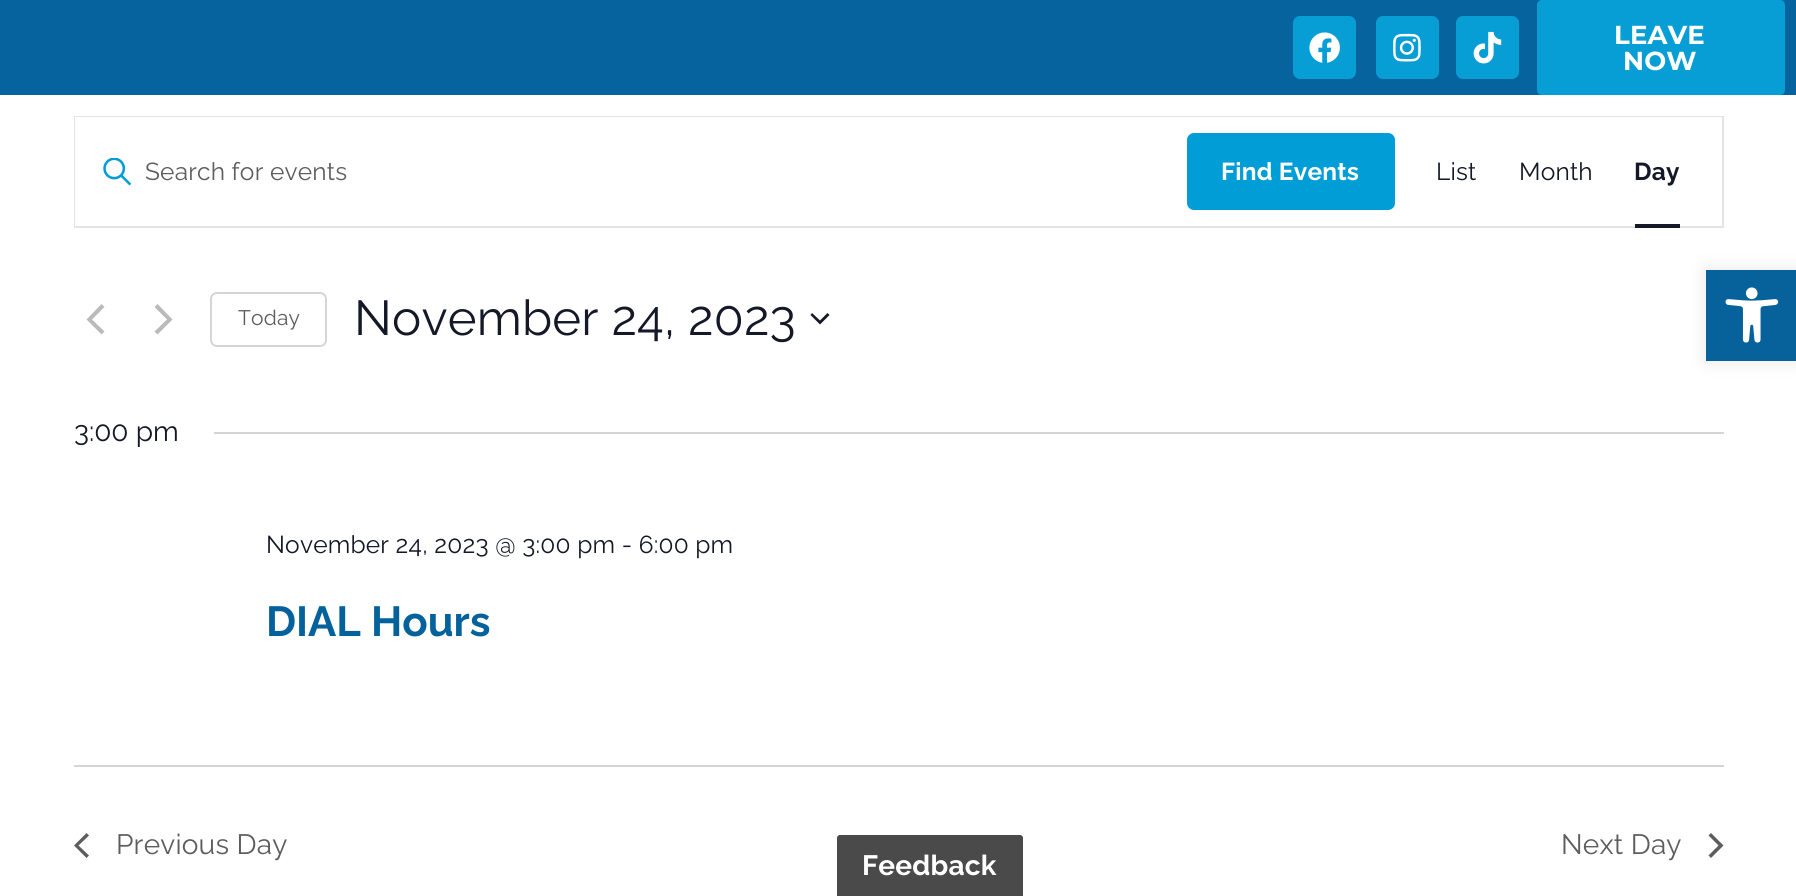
import math
import cairo

surface = cairo.ImageSurface(cairo.FORMAT_RGB24, 1796, 896)
cr = cairo.Context(surface)
options = cairo.FontOptions()
options.set_hint_metrics(cairo.HINT_METRICS_OFF)
options.set_hint_style(cairo.HINT_STYLE_NONE)
cr.set_font_options(options)
cr.set_miter_limit(4)


def rgb(code):
    cr.set_source_rgb(*(v / 255 for v in bytes.fromhex(code[-6:])))


def tracked(x, y, s, letter, word):
    cr.move_to(x, y)
    for ch in s:
        cr.show_text(ch)
        cr.rel_move_to(letter + word * (ch == ' '), 0)


def rrect(x, y, w, h, r):
    cr.new_sub_path()
    for i, (u, v) in enumerate([(x + w - r, y + h - r), (x + r, y + h - r), (x + r, y + r), (x + w - r, y + r)]):
        cr.arc(u, v, r, i * math.pi / 2, (i + 1) * math.pi / 2)
    cr.close_path()


def soft_shadow(x, y, w, h, r, blur, alpha):
    cr.push_group_with_content(cairo.CONTENT_ALPHA)
    cr.set_operator(cairo.OPERATOR_SOURCE)
    for i in range(15, -16, -2):
        e = blur * i / 6
        if min(w, h) + 2 * e > 0:
            cr.set_source_rgba(0, 0, 0, alpha * math.erfc((i - 1) / 8.5) / 2)
            rrect(x - e, y - e, w + 2 * e, h + 2 * e, max(0, min(r + e + blur * .6, min(w, h) / 2 + e)))
            cr.fill()
    cr.mask(cr.pop_group())


def image(path, x, y, w, h):
    cr.save()
    cr.set_source_surface(cairo.ImageSurface.create_from_png(path), x, y)
    cr.rectangle(x, y, w, h)
    cr.fill()
    cr.restore()


rgb("#ffffff")
cr.paint()
rgb("#06639d")
cr.rectangle(0, 0, 1796, 95)
cr.fill()
rgb("#079dd5")
rrect(1293, 16, 63, 63, 7)
cr.fill()
image("img/1.png", 1309, 32, 31, 31)
rrect(1376, 16, 63, 63, 7)
cr.fill()
image("img/2.png", 1393, 33, 28, 29)
rrect(1456, 16, 63, 63, 7)
cr.fill()
image("img/3.png", 1473, 31, 29, 33)
rrect(1537, 0, 248, 95, 5)
cr.fill()
cr.rectangle(75, 117, 1648, 110)
rgb("#e4e4e4")
cr.stroke()
rgb("#ffffff")
cr.rectangle(75, 117, 1320, 109)
cr.fill()
image("img/4.png", 103, 158, 28, 28)
rgb("#019dd6")
rrect(1187, 133, 208, 77, 7)
cr.fill()
rgb("#ffffff")
cr.rectangle(1395, 117, 327, 1)
cr.fill()
rgb("#141827")
cr.rectangle(1635, 224, 45, 4)
cr.fill()
rgb("#bababa")
cr.new_path()
cr.move_to(104.5, 331.5)
cr.line_to(101.5, 334.5)
cr.line_to(86.5, 319.5)
cr.line_to(101.5, 304)
cr.line_to(104.5, 307)
cr.line_to(92, 319.5)
cr.close_path()
cr.fill()
cr.new_path()
cr.move_to(154.5, 307)
cr.line_to(157.5, 304)
cr.line_to(172.5, 319.5)
cr.line_to(157.5, 334.5)
cr.line_to(154.5, 331.5)
cr.line_to(167, 319.5)
cr.close_path()
cr.fill()
rrect(211, 293, 115, 53, 6)
rgb("#d5d5d5")
cr.stroke()
rgb("#141827")
cr.set_fill_rule(cairo.FILL_RULE_EVEN_ODD)
cr.new_path()
cr.move_to(812, 313)
cr.line_to(820, 320.5)
cr.line_to(827.5, 313)
cr.line_to(829.5, 315)
cr.line_to(820, 324.5)
cr.line_to(810.5, 315)
cr.close_path()
cr.fill()
rgb("#d5d5d5")
cr.rectangle(214, 432, 1510, 2)
cr.fill()
cr.rectangle(74, 765, 1650, 2)
cr.fill()
rgb("#5d5d5d")
cr.set_fill_rule(cairo.FILL_RULE_WINDING)
cr.new_path()
cr.move_to(89, 855.5)
cr.line_to(86.5, 858)
cr.line_to(74, 845.5)
cr.line_to(86.5, 833)
cr.line_to(89, 835.5)
cr.line_to(78.5, 845.5)
cr.close_path()
cr.fill()
cr.new_path()
cr.move_to(1708.5, 835.5)
cr.line_to(1711, 833)
cr.line_to(1723.5, 845.5)
cr.line_to(1711, 858)
cr.line_to(1708.5, 855.5)
cr.line_to(1718.5, 845.5)
cr.close_path()
cr.fill()
rgb("#000000")
soft_shadow(1706, 270, 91, 91, 0, 9, 0.1)
rgb("#07629c")
cr.rectangle(1706, 270, 90, 91)
cr.fill()
image("img/5.png", 1725, 287, 54, 56)
rgb("#4a4a4a")
rrect(835, 833, 190, 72, 5)
cr.fill_preserve()
rgb("#ffffff")
cr.set_line_width(4)
cr.stroke()
cr.select_font_face("Montserrat", cairo.FONT_SLANT_NORMAL, cairo.FONT_WEIGHT_BOLD)
cr.set_font_size(26)
tracked(1614, 44, "LEAVE", 0.2, 0)
tracked(1623, 70, "NOW", 0.2, 0)
cr.select_font_face("Raleway")
cr.set_font_size(24.5)
rgb("#5d5d5d")
tracked(145, 180, "Search for events", 0.2, 0)
cr.select_font_face("Raleway", cairo.FONT_SLANT_NORMAL, cairo.FONT_WEIGHT_BOLD)
rgb("#ffffff")
tracked(1221, 180, "Find Events", 0.2, 0)
cr.select_font_face("Raleway")
rgb("#141827")
tracked(1436, 180, "List", 0.2, 0)
tracked(1519, 180, "Month", 0.2, 0)
cr.select_font_face("Raleway", cairo.FONT_SLANT_NORMAL, cairo.FONT_WEIGHT_BOLD)
tracked(1634, 180, "Day", 0.2, 0)
cr.select_font_face("Raleway")
cr.set_font_size(21)
rgb("#5d5d5d")
tracked(238, 325, "Today", 0.2, 0)
cr.set_font_size(49)
rgb("#141827")
tracked(354, 335, "November 24, 2023", 0.2, 0)
cr.set_font_size(28)
cr.move_to(74, 441)
cr.show_text("3:00 pm")
cr.set_font_size(24.5)
tracked(266, 553, "November 24, 2023 @ 3:00 pm - 6:00 pm", 0.2, 0)
cr.select_font_face("Raleway", cairo.FONT_SLANT_NORMAL, cairo.FONT_WEIGHT_BOLD)
cr.set_font_size(42)
rgb("#03629c")
cr.move_to(266, 636)
cr.show_text("DIAL Hours")
cr.select_font_face("Raleway")
cr.set_font_size(28)
rgb("#5d5d5d")
tracked(116, 854, "Previous Day", 0.2, 0)
tracked(1561, 854, "Next Day", 0.2, 0)
cr.select_font_face("Raleway", cairo.FONT_SLANT_NORMAL, cairo.FONT_WEIGHT_BOLD)
rgb("#ffffff")
tracked(862, 875, "Feedback", 0.2, 0)
surface.write_to_png("page.png")
